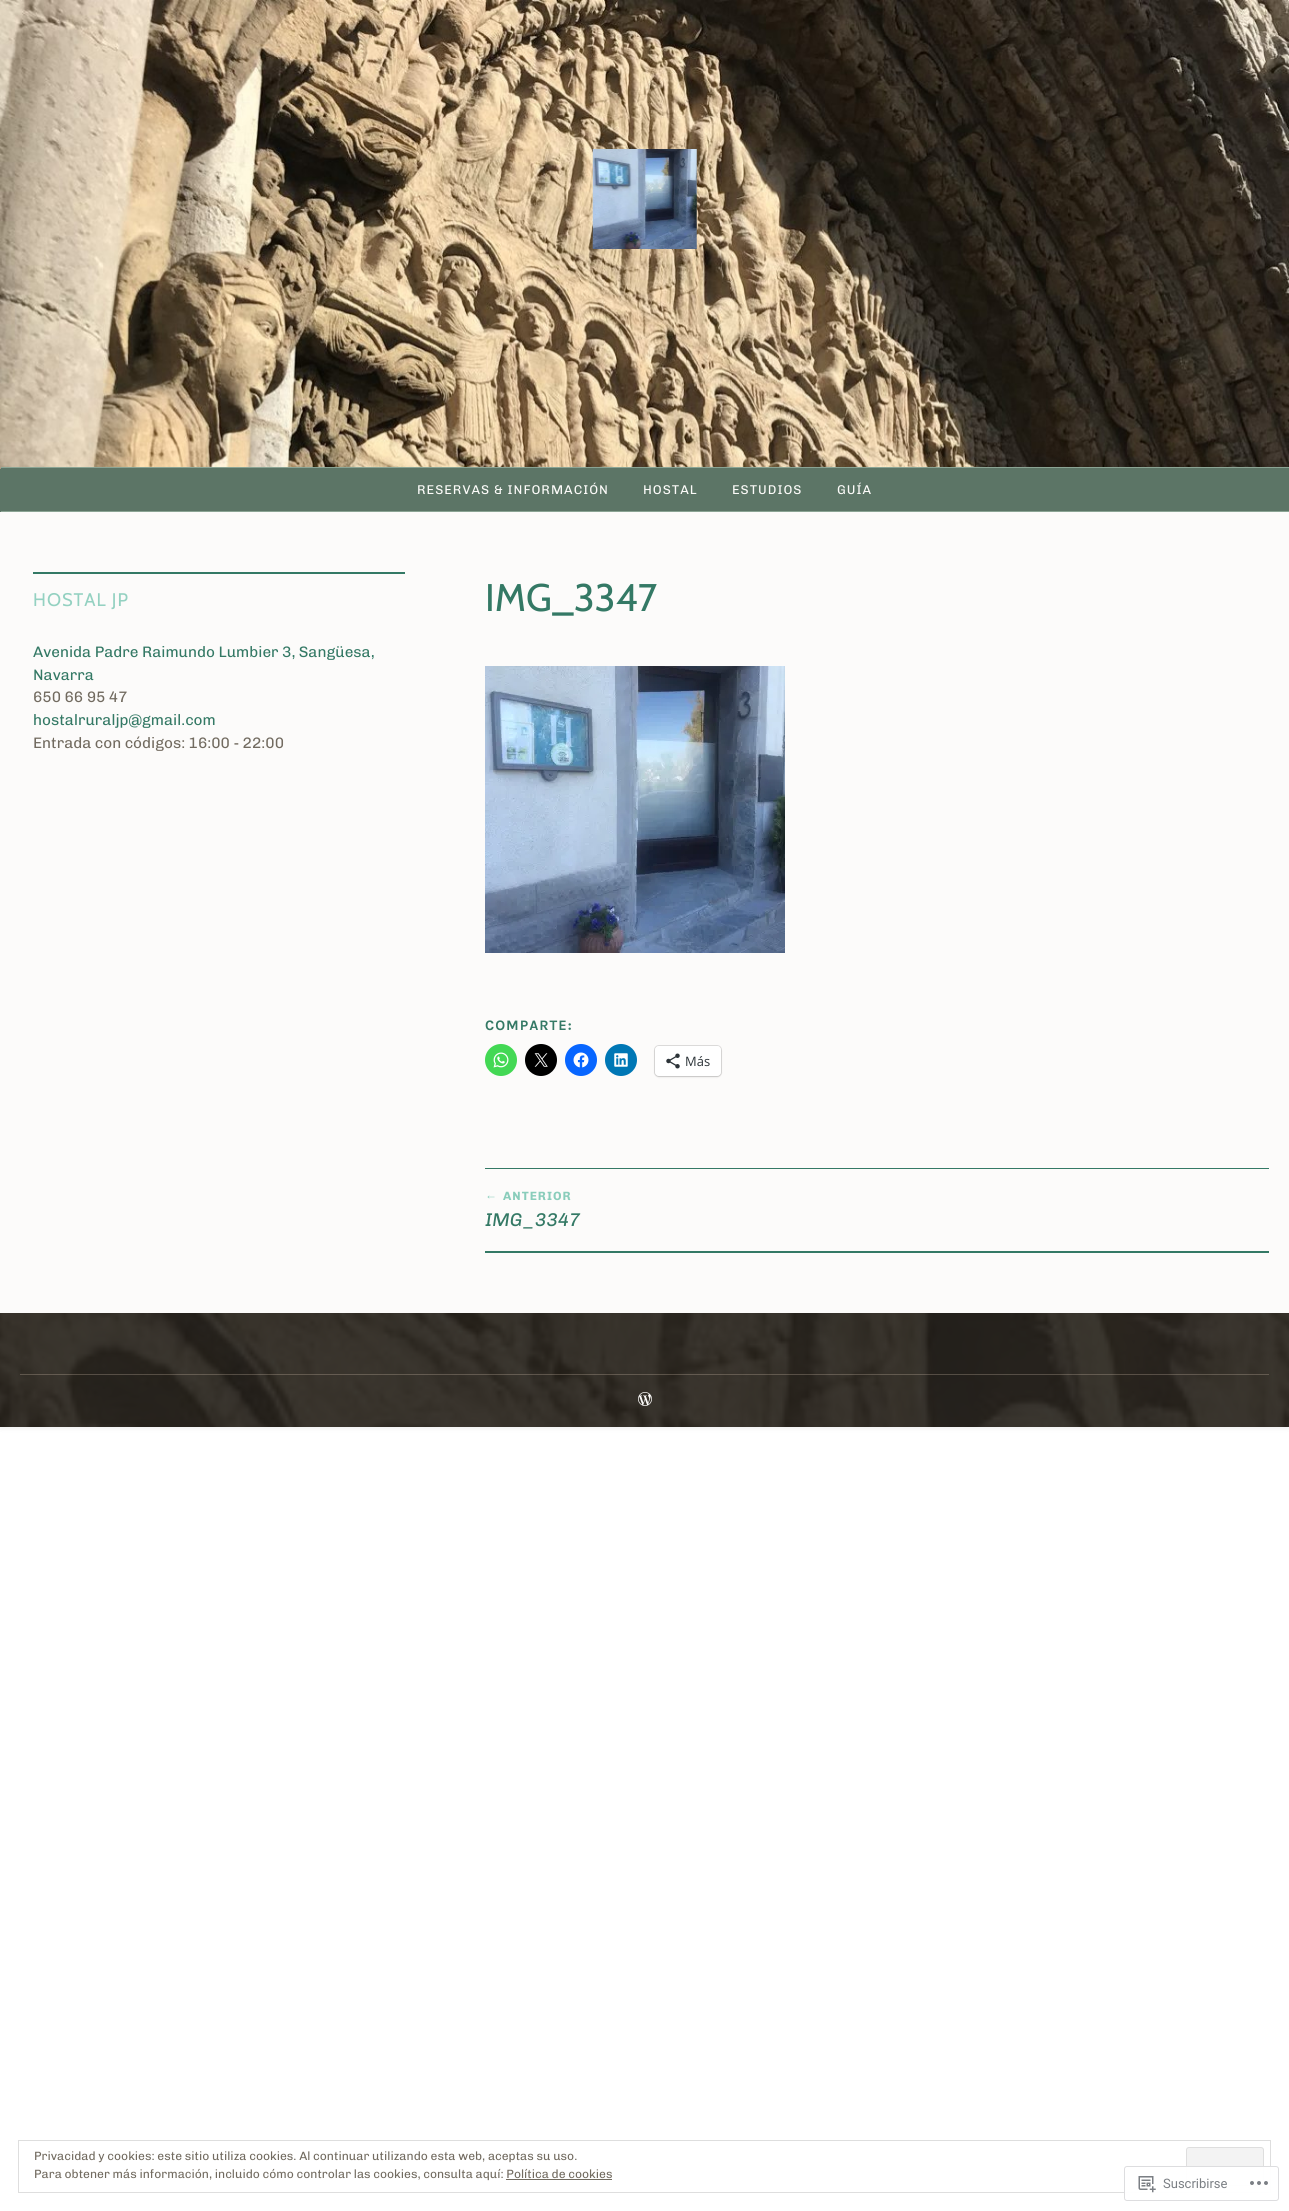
import math
import cairo

surface = cairo.ImageSurface(cairo.FORMAT_RGB24, 1289, 2211)
cr = cairo.Context(surface)
options = cairo.FontOptions()
options.set_hint_metrics(cairo.HINT_METRICS_OFF)
options.set_hint_style(cairo.HINT_STYLE_NONE)
cr.set_font_options(options)
cr.set_miter_limit(4)


def rgb(code):
    cr.set_source_rgb(*(v / 255 for v in bytes.fromhex(code[-6:])))


def tracked(x, y, s, letter, word):
    cr.move_to(x, y)
    for ch in s:
        cr.show_text(ch)
        cr.rel_move_to(letter + word * (ch == ' '), 0)


def rrect(x, y, w, h, r):
    cr.new_sub_path()
    for i, (u, v) in enumerate([(x + w - r, y + h - r), (x + r, y + h - r), (x + r, y + r), (x + w - r, y + r)]):
        cr.arc(u, v, r, i * math.pi / 2, (i + 1) * math.pi / 2)
    cr.close_path()


def soft_shadow(x, y, w, h, r, blur, alpha):
    cr.push_group_with_content(cairo.CONTENT_ALPHA)
    cr.set_operator(cairo.OPERATOR_SOURCE)
    for i in range(15, -16, -2):
        e = blur * i / 6
        if min(w, h) + 2 * e > 0:
            cr.set_source_rgba(0, 0, 0, alpha * math.erfc((i - 1) / 8.5) / 2)
            rrect(x - e, y - e, w + 2 * e, h + 2 * e, max(0, min(r + e + blur * .6, min(w, h) / 2 + e)))
            cr.fill()
    cr.mask(cr.pop_group())


def image(path, x, y, w, h):
    cr.save()
    cr.set_source_surface(cairo.ImageSurface.create_from_png(path), x, y)
    cr.rectangle(x, y, w, h)
    cr.fill()
    cr.restore()


rgb("#ffffff")
cr.paint()
rgb("#000000")
soft_shadow(0, 0, 1289, 1427, 0, 3, 0.1)
rgb("#fcfbfa")
cr.rectangle(0, 512, 1289, 801)
cr.fill()
rgb("#5c7566")
cr.rectangle(0, 468, 1, 44)
cr.fill()
image("img/1.png", 0, 0, 1289, 469)
image("img/2.png", 592, 149, 105, 100)
for x, y, w, h, color in [
    (1, 468, 1288, 43, "#5c7566"),
    (1, 467, 1288, 1, "#8ba494"),
    (1, 511, 1288, 1, "#8ba494"),
    (33, 572, 372, 2, "#347965"),
]:
    rgb(color)
    cr.rectangle(x, y, w, h)
    cr.fill()
image("img/3.png", 485, 666, 300, 287)
rgb("#43d854")
cr.arc(501, 1060, 16, 0, 2 * math.pi)
cr.fill()
image("img/4.png", 493, 1052, 16, 16)
rgb("#000000")
cr.arc(541, 1060, 16, 0, 2 * math.pi)
cr.fill()
image("img/5.png", 534, 1053, 14, 14)
rgb("#0866ff")
cr.arc(581, 1060, 16, 0, 2 * math.pi)
cr.fill()
image("img/6.png", 573, 1052, 16, 16)
rgb("#0077b5")
cr.arc(621, 1060, 16, 0, 2 * math.pi)
cr.fill()
image("img/7.png", 614, 1053, 14, 14)
rrect(654.5, 1045.5, 67, 31, 4.5)
rgb("#dedddc")
cr.set_line_width(1)
cr.stroke()
rgb("#000000")
soft_shadow(655, 1047, 66, 30, 4, 1, 0.12)
rgb("#ffffff")
rrect(655, 1046, 66, 30, 4)
cr.fill()
image("img/8.png", 666, 1053, 14, 16)
rgb("#347965")
cr.rectangle(485, 1168, 784, 1)
cr.fill()
cr.rectangle(485, 1251, 784, 2)
cr.fill()
image("img/9.png", 0, 1313, 1289, 114)
cr.set_source_rgba(0.914, 0.835, 0.753, 0.25)
cr.rectangle(20, 1374, 1249, 1)
cr.fill()
image("img/10.png", 638, 1392, 14, 14)
cr.rectangle(18.5, 2140.5, 1252, 52)
rgb("#dedede")
cr.stroke()
rgb("#f3f3f3")
rrect(1186.5, 2147.5, 77, 38, 2.5)
cr.fill_preserve()
rgb("#dedede")
cr.stroke()
rgb("#726b60")
cr.rectangle(506, 2179, 106, 1)
cr.fill()
cr.set_source_rgba(1, 1, 1, 0.98)
rrect(1124, 2166, 155, 35, 3)
cr.fill()
rrect(1124.5, 2166.5, 154, 34, 2.5)
cr.set_source_rgba(0.863, 0.863, 0.871, 0.98)
cr.stroke()
image("img/11.png", 1138, 2176, 18, 17)
image("img/12.png", 1250, 2181, 18, 4)
cr.select_font_face("Chivo")
cr.set_font_size(12.75)
rgb("#fcfbf9")
for x, y, s in [
    (417, 494, "RESERVAS & INFORMACIÓN"),
    (643, 494, "HOSTAL"),
    (732, 494, "ESTUDIOS"),
    (837, 494, "GUÍA"),
]:
    tracked(x, y, s, 1, 0)
cr.select_font_face("Cabin")
cr.set_font_size(18.25)
rgb("#94d1c1")
tracked(33, 606, "HOSTAL JP", 1, 0)
cr.select_font_face("Chivo")
cr.set_font_size(15.2)
rgb("#347965")
cr.move_to(33, 657)
cr.show_text("Avenida Padre Raimundo Lumbier 3, Sangüesa,")
cr.move_to(33, 680)
cr.show_text("Navarra")
rgb("#726b60")
cr.move_to(33, 702)
cr.show_text("650 66 95 47")
rgb("#347965")
cr.move_to(33, 725)
cr.show_text("hostalruraljp@gmail.com")
rgb("#726b60")
cr.move_to(33, 748)
cr.show_text("Entrada con códigos: 16:00 - 22:00")
cr.select_font_face("Cabin")
cr.set_font_size(38.5)
rgb("#347965")
cr.move_to(485, 611)
cr.show_text("IMG_3347")
cr.select_font_face("Karla", cairo.FONT_SLANT_NORMAL, cairo.FONT_WEIGHT_BOLD)
cr.set_font_size(14.5)
tracked(485, 1030, "COMPARTE:", 1, 0)
cr.select_font_face("Open Sans")
cr.set_font_size(13)
rgb("#2c3338")
cr.move_to(685, 1066)
cr.show_text("Más")
cr.select_font_face("Liberation Serif")
cr.set_font_size(12)
rgb("#8acdbb")
tracked(485, 1199, "←", 1, 0)
cr.select_font_face("Chivo", cairo.FONT_SLANT_NORMAL, cairo.FONT_WEIGHT_BOLD)
tracked(503, 1200, "ANTERIOR", 1, 0)
cr.select_font_face("Chivo", cairo.FONT_SLANT_ITALIC)
cr.set_font_size(18.5)
rgb("#347965")
cr.move_to(485, 1226)
cr.show_text("IMG_3347")
cr.select_font_face("Chivo")
cr.set_font_size(12)
rgb("#726b60")
cr.move_to(34, 2160)
cr.show_text("Privacidad y cookies: este sitio utiliza cookies. Al continuar utilizando esta web, aceptas su uso.")
cr.move_to(34, 2178)
cr.show_text("Para obtener más información, incluido cómo controlar las cookies, consulta aquí: Política de cookies")
cr.select_font_face("Roboto")
cr.set_font_size(13)
rgb("#7b7f84")
cr.move_to(1163, 2188)
cr.show_text("Suscribirse")
surface.write_to_png("page.png")
